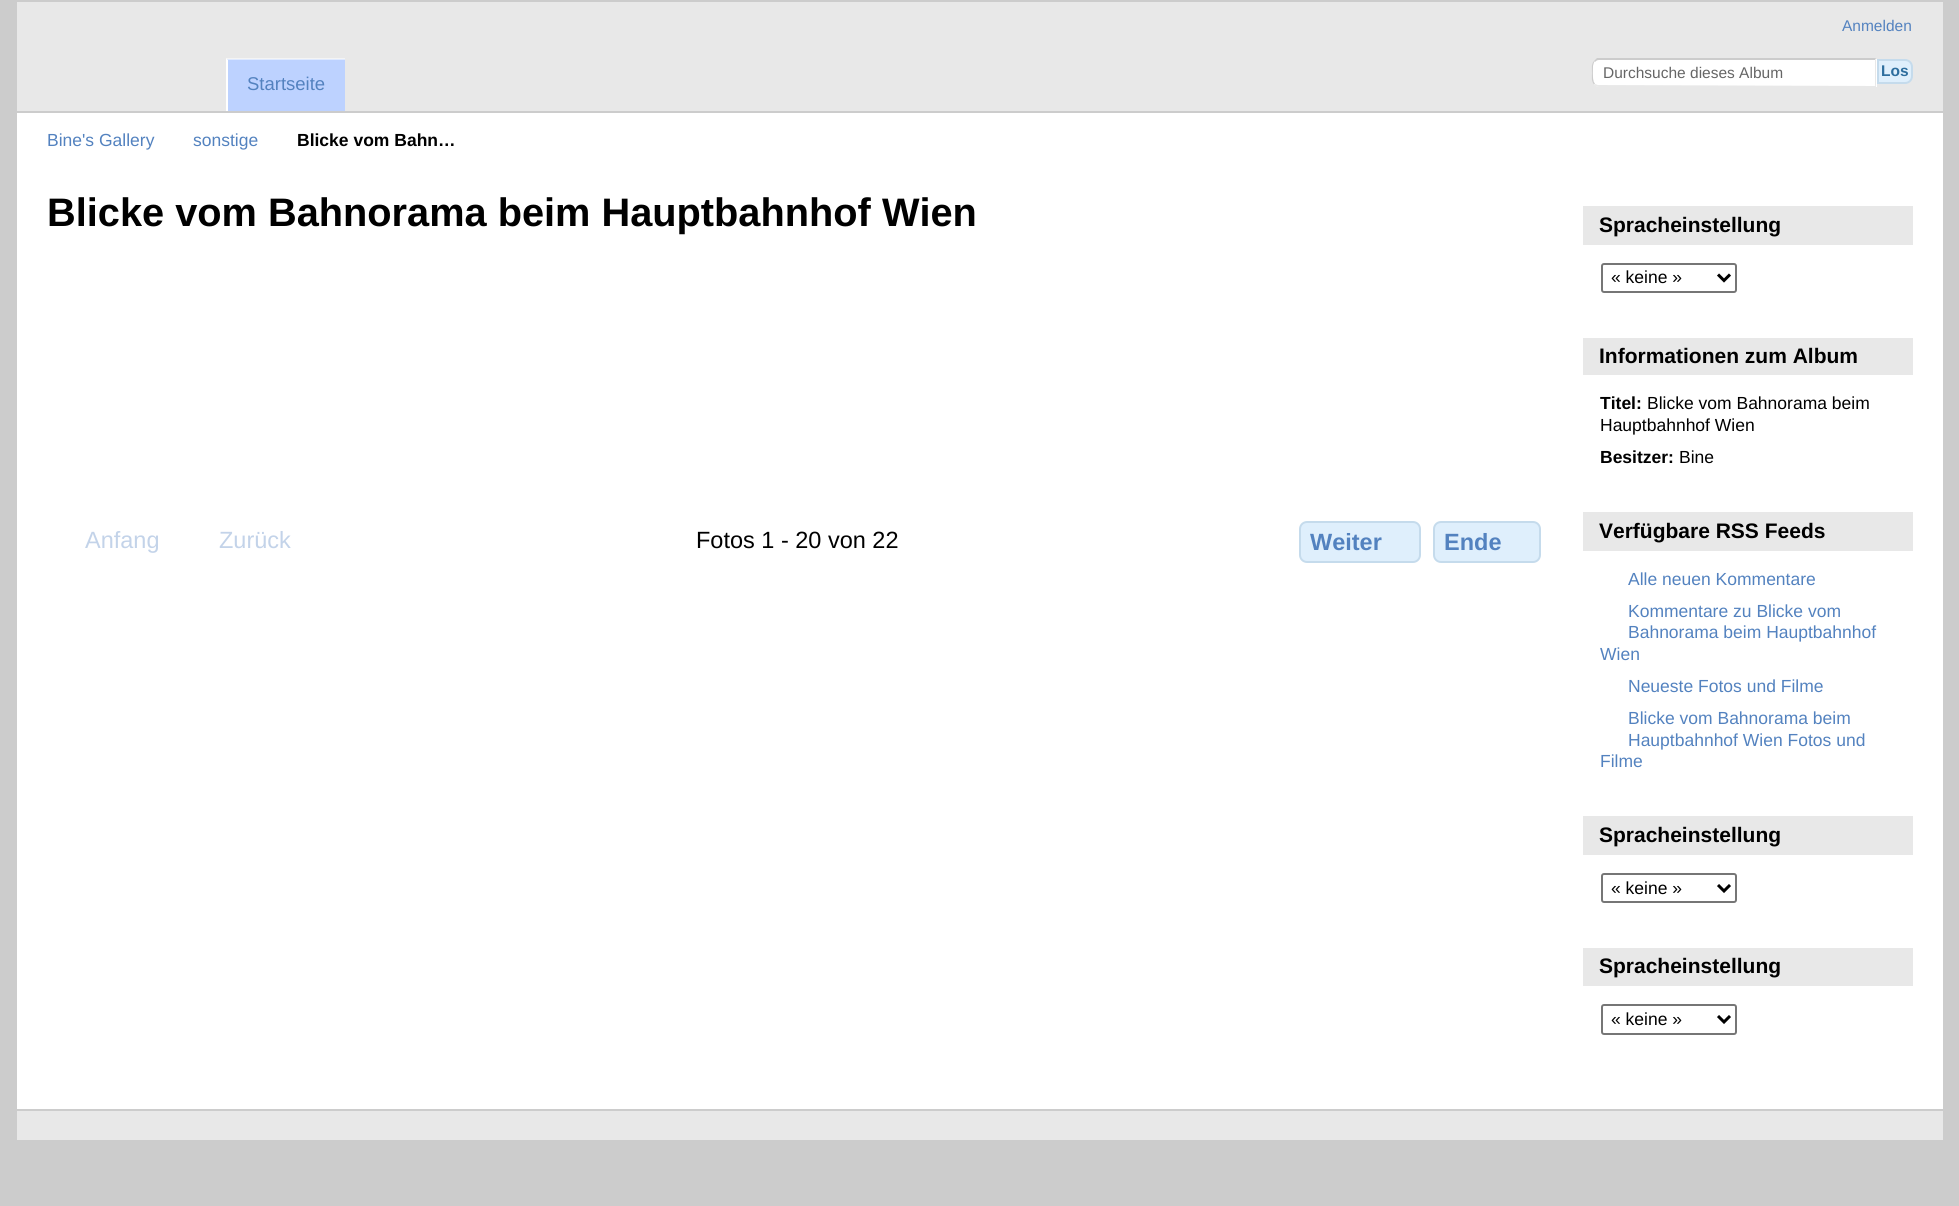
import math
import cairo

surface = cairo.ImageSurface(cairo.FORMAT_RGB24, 1959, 1206)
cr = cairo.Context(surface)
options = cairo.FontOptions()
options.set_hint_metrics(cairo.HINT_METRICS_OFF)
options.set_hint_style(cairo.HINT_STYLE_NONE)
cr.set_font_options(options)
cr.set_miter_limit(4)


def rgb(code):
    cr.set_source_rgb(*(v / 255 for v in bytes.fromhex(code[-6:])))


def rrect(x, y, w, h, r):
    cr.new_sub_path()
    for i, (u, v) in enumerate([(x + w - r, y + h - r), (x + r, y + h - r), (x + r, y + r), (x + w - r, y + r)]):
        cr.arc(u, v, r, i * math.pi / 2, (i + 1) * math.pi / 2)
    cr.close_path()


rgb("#cccccc")
cr.paint()
rgb("#ffffff")
cr.rectangle(17, 113, 1926, 996)
cr.fill()
rgb("#e8e8e8")
cr.rectangle(17, 2, 1926, 109)
cr.fill()
rgb("#ffffff")
cr.new_path()
cr.move_to(1600, 59)
cr.line_to(1877, 59)
cr.line_to(1877, 87)
cr.line_to(1600, 87)
cr.curve_to(1595.5, 87, 1592, 83.5, 1592, 79)
cr.line_to(1592, 67)
cr.curve_to(1592, 62.5, 1595.5, 59, 1600, 59)
cr.close_path()
cr.fill()
rgb("#cccccc")
cr.new_path()
cr.move_to(1599, 60)
cr.curve_to(1597, 60, 1596, 61, 1595, 62)
cr.line_to(1594, 61)
cr.line_to(1597, 58)
cr.line_to(1876, 58)
cr.line_to(1875, 60)
cr.close_path()
cr.fill()
rgb("#e8e8e8")
cr.new_path()
cr.move_to(1876, 59)
cr.line_to(1876, 86.5)
cr.line_to(1875, 85.5)
cr.line_to(1875, 60)
cr.close_path()
cr.fill()
cr.new_path()
cr.move_to(1599, 87)
cr.line_to(1876, 87)
cr.line_to(1876, 86)
cr.line_to(1875, 86)
cr.line_to(1598, 85)
cr.curve_to(1597, 85, 1596, 84, 1595, 84)
cr.line_to(1594, 85)
cr.curve_to(1595, 86, 1597, 87, 1599, 87)
cr.close_path()
cr.fill()
rgb("#cccccc")
cr.new_path()
cr.move_to(1594, 84.5)
cr.curve_to(1591, 81.5, 1592, 76.5, 1592, 73)
cr.curve_to(1592, 69, 1591, 64, 1594, 61)
cr.line_to(1594.5, 61.5)
cr.curve_to(1593.5, 63, 1593.5, 64.5, 1593, 66)
cr.curve_to(1593, 68.5, 1592.5, 78, 1593.5, 80.5)
cr.curve_to(1593.5, 81.5, 1594, 82.5, 1595, 83.5)
cr.close_path()
cr.fill()
rgb("#dfeffc")
cr.new_path()
cr.move_to(1878, 60)
cr.line_to(1905, 60)
cr.curve_to(1909, 60, 1912, 63, 1912, 67)
cr.line_to(1912, 76)
cr.curve_to(1912, 80, 1909, 83, 1905, 83)
cr.line_to(1878, 83)
cr.close_path()
cr.fill_preserve()
rgb("#c5dbec")
cr.stroke()
rgb("#bdd2ff")
cr.rectangle(227, 59, 118, 52)
cr.fill()
cr.set_source_rgba(1, 1, 1, 0.5)
cr.new_path()
cr.move_to(226, 58)
cr.line_to(345, 58)
cr.line_to(345, 60)
cr.line_to(228, 60)
cr.close_path()
cr.fill()
rgb("#ffffff")
cr.new_path()
cr.move_to(226, 111)
cr.line_to(226, 58)
cr.line_to(228, 60)
cr.line_to(228, 111)
cr.close_path()
cr.fill()
rgb("#dfeffc")
rrect(1300, 522, 120, 40, 7)
cr.fill_preserve()
rgb("#c5dbec")
cr.stroke()
rgb("#dfeffc")
rrect(1434, 522, 106, 40, 7)
cr.fill_preserve()
rgb("#c5dbec")
cr.stroke()
rgb("#e8e8e8")
cr.rectangle(1583, 206, 330, 39)
cr.fill()
rrect(1602, 264, 134, 28, 2)
rgb("#767676")
cr.stroke()
cr.new_path()
cr.move_to(1718, 274.5)
cr.line_to(1724, 280.5)
cr.line_to(1730, 274.5)
rgb("#000000")
cr.set_line_width(3)
cr.stroke()
for x, y, w, h, color in [
    (1583, 338, 330, 37, "#e8e8e8"),
    (1583, 512, 330, 39, "#e8e8e8"),
    (1583, 816, 330, 39, "#e8e8e8"),
]:
    rgb(color)
    cr.rectangle(x, y, w, h)
    cr.fill()
rrect(1602, 874, 134, 28, 2)
rgb("#767676")
cr.set_line_width(2)
cr.stroke()
cr.new_path()
cr.move_to(1718, 885)
cr.line_to(1724, 891)
cr.line_to(1730, 885)
rgb("#000000")
cr.set_line_width(3)
cr.stroke()
rgb("#e8e8e8")
cr.rectangle(1583, 948, 330, 38)
cr.fill()
rrect(1602, 1005, 134, 29, 2)
rgb("#767676")
cr.set_line_width(2)
cr.stroke()
cr.new_path()
cr.move_to(1718, 1016)
cr.line_to(1724, 1022)
cr.line_to(1730, 1016)
rgb("#000000")
cr.set_line_width(3)
cr.stroke()
rgb("#e8e8e8")
cr.rectangle(17, 1111, 1926, 29)
cr.fill()
cr.select_font_face("Liberation Sans")
cr.set_font_size(15.5)
rgb("#5382bf")
cr.move_to(1842, 31)
cr.show_text("Anmelden")
rgb("#666666")
cr.move_to(1603, 78)
cr.show_text("Durchsuche dieses Album")
cr.select_font_face("Liberation Sans", cairo.FONT_SLANT_NORMAL, cairo.FONT_WEIGHT_BOLD)
rgb("#2e6e9e")
cr.move_to(1881, 76)
cr.show_text("Los")
cr.select_font_face("Liberation Sans")
cr.set_font_size(18.5)
rgb("#5382bf")
cr.move_to(247, 90)
cr.show_text("Startseite")
cr.set_font_size(17.5)
cr.move_to(47, 146)
cr.show_text("Bine's Gallery")
cr.move_to(193, 146)
cr.show_text("sonstige")
cr.select_font_face("Liberation Sans", cairo.FONT_SLANT_NORMAL, cairo.FONT_WEIGHT_BOLD)
rgb("#000000")
cr.move_to(297, 146)
cr.show_text("Blicke vom Bahn…")
cr.set_font_size(39.75)
cr.move_to(47, 226)
cr.show_text("Blicke vom Bahnorama beim Hauptbahnhof Wien")
cr.select_font_face("Liberation Sans")
cr.set_font_size(23.5)
rgb("#c3d3e9")
cr.move_to(85, 548)
cr.show_text("Anfang")
cr.move_to(219, 548)
cr.show_text("Zurück")
rgb("#000000")
cr.move_to(696, 548)
cr.show_text("Fotos 1 - 20 von 22")
cr.select_font_face("Liberation Sans", cairo.FONT_SLANT_NORMAL, cairo.FONT_WEIGHT_BOLD)
rgb("#5382bf")
cr.move_to(1310, 550)
cr.show_text("Weiter")
cr.move_to(1444, 550)
cr.show_text("Ende")
cr.set_font_size(21)
rgb("#000000")
cr.move_to(1599, 232)
cr.show_text("Spracheinstellung")
cr.select_font_face("Liberation Sans")
cr.set_font_size(17.5)
cr.move_to(1611, 283)
cr.show_text("« keine »")
cr.select_font_face("Liberation Sans", cairo.FONT_SLANT_NORMAL, cairo.FONT_WEIGHT_BOLD)
cr.set_font_size(21)
cr.move_to(1599, 363)
cr.show_text("Informationen zum Album")
cr.set_font_size(17.5)
cr.move_to(1600, 409)
cr.show_text("Titel:")
cr.select_font_face("Liberation Sans")
cr.move_to(1647, 409)
cr.show_text("Blicke vom Bahnorama beim")
cr.move_to(1600, 431)
cr.show_text("Hauptbahnhof Wien")
cr.select_font_face("Liberation Sans", cairo.FONT_SLANT_NORMAL, cairo.FONT_WEIGHT_BOLD)
cr.move_to(1600, 463)
cr.show_text("Besitzer:")
cr.select_font_face("Liberation Sans")
cr.move_to(1679, 463)
cr.show_text("Bine")
cr.select_font_face("Liberation Sans", cairo.FONT_SLANT_NORMAL, cairo.FONT_WEIGHT_BOLD)
cr.set_font_size(21)
cr.move_to(1599, 538)
cr.show_text("Verfügbare RSS Feeds")
cr.select_font_face("Liberation Sans")
cr.set_font_size(17.5)
rgb("#5382bf")
for x, y, s in [
    (1628, 585, "Alle neuen Kommentare"),
    (1628, 617, "Kommentare zu Blicke vom"),
    (1628, 638, "Bahnorama beim Hauptbahnhof"),
    (1600, 660, "Wien"),
    (1628, 692, "Neueste Fotos und Filme"),
    (1628, 724, "Blicke vom Bahnorama beim"),
    (1628, 746, "Hauptbahnhof Wien Fotos und"),
    (1600, 767, "Filme"),
]:
    cr.move_to(x, y)
    cr.show_text(s)
cr.select_font_face("Liberation Sans", cairo.FONT_SLANT_NORMAL, cairo.FONT_WEIGHT_BOLD)
cr.set_font_size(21)
rgb("#000000")
cr.move_to(1599, 842)
cr.show_text("Spracheinstellung")
cr.select_font_face("Liberation Sans")
cr.set_font_size(17.5)
cr.move_to(1611, 894)
cr.show_text("« keine »")
cr.select_font_face("Liberation Sans", cairo.FONT_SLANT_NORMAL, cairo.FONT_WEIGHT_BOLD)
cr.set_font_size(21)
cr.move_to(1599, 973)
cr.show_text("Spracheinstellung")
cr.select_font_face("Liberation Sans")
cr.set_font_size(17.5)
cr.move_to(1611, 1025)
cr.show_text("« keine »")
surface.write_to_png("page.png")
